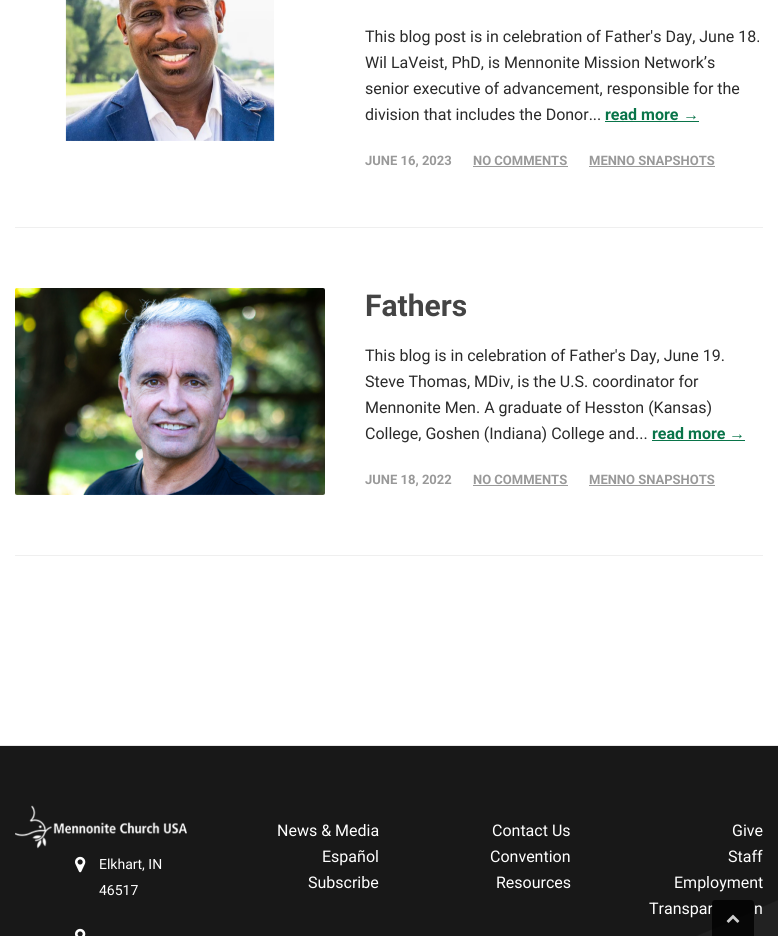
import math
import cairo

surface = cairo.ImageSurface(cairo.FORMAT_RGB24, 778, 936)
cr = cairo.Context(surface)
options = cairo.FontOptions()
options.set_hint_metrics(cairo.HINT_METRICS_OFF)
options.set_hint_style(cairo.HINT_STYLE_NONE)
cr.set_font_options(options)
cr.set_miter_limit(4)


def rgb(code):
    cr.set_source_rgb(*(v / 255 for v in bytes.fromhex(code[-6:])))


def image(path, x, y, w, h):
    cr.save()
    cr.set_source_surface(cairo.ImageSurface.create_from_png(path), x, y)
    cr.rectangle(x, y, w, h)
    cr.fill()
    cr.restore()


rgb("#ffffff")
cr.paint()
rgb("#efefef")
cr.rectangle(15, 227, 748, 1)
cr.fill()
image("img/1.png", 65, 0, 210, 141)
for x, y, w, h, color in [
    (605, 121, 94, 1, "#097449"),
    (473, 166, 95, 1, "#999999"),
    (589, 166, 126, 1, "#999999"),
    (15, 555, 748, 1, "#efefef"),
]:
    rgb(color)
    cr.rectangle(x, y, w, h)
    cr.fill()
image("img/2.png", 15, 288, 310, 207)
for x, y, w, h, color in [
    (652, 440, 93, 1, "#097449"),
    (473, 485, 95, 1, "#999999"),
    (589, 485, 126, 1, "#999999"),
    (695, 899, 83, 37, "#222222"),
]:
    rgb(color)
    cr.rectangle(x, y, w, h)
    cr.fill()
image("img/3.png", 0, 745, 778, 191)
image("img/4.png", 15, 805, 172, 44)
image("img/5.png", 75, 856, 11, 17)
image("img/6.png", 75, 928, 11, 8)
cr.select_font_face("Roboto")
cr.set_font_size(16)
rgb("#2a2a2a")
for x, y, s in [
    (365, 42, "This blog post is in celebration of Father's Day, June 18."),
    (365, 68, "Wil LaVeist, PhD, is Mennonite Mission Network’s"),
    (365, 94, "senior executive of advancement, responsible for the"),
    (365, 120, "division that includes the Donor..."),
]:
    cr.move_to(x, y)
    cr.show_text(s)
cr.select_font_face("Roboto", cairo.FONT_SLANT_NORMAL, cairo.FONT_WEIGHT_BOLD)
rgb("#097449")
cr.move_to(605, 120)
cr.show_text("read more")
cr.select_font_face("Liberation Sans", cairo.FONT_SLANT_NORMAL, cairo.FONT_WEIGHT_BOLD)
cr.move_to(683, 120)
cr.show_text("→")
cr.select_font_face("Roboto", cairo.FONT_SLANT_NORMAL, cairo.FONT_WEIGHT_BOLD)
cr.set_font_size(13)
rgb("#999999")
for x, y, s in [
    (365, 165, "JUNE 16, 2023"),
    (473, 165, "NO COMMENTS"),
    (589, 165, "MENNO SNAPSHOTS"),
]:
    cr.move_to(x, y)
    cr.show_text(s)
cr.set_font_size(30)
rgb("#444444")
cr.move_to(365, 316)
cr.show_text("Fathers")
cr.select_font_face("Roboto")
cr.set_font_size(16)
rgb("#2a2a2a")
for x, y, s in [
    (365, 361, "This blog is in celebration of Father's Day, June 19."),
    (365, 387, "Steve Thomas, MDiv, is the U.S. coordinator for"),
    (365, 413, "Mennonite Men. A graduate of Hesston (Kansas)"),
    (365, 439, "College, Goshen (Indiana) College and..."),
]:
    cr.move_to(x, y)
    cr.show_text(s)
cr.select_font_face("Roboto", cairo.FONT_SLANT_NORMAL, cairo.FONT_WEIGHT_BOLD)
rgb("#097449")
cr.move_to(652, 439)
cr.show_text("read more")
cr.select_font_face("Liberation Sans", cairo.FONT_SLANT_NORMAL, cairo.FONT_WEIGHT_BOLD)
cr.move_to(729, 439)
cr.show_text("→")
cr.select_font_face("Roboto", cairo.FONT_SLANT_NORMAL, cairo.FONT_WEIGHT_BOLD)
cr.set_font_size(13)
rgb("#999999")
for x, y, s in [
    (365, 484, "JUNE 18, 2022"),
    (473, 484, "NO COMMENTS"),
    (589, 484, "MENNO SNAPSHOTS"),
]:
    cr.move_to(x, y)
    cr.show_text(s)
cr.select_font_face("Roboto")
cr.set_font_size(14)
rgb("#ffffff")
cr.move_to(99, 869)
cr.show_text("Elkhart, IN")
cr.move_to(99, 895)
cr.show_text("46517")
cr.set_font_size(16)
for x, y, s in [
    (277, 836, "News & Media"),
    (322, 862, "Español"),
    (308, 888, "Subscribe"),
    (492, 836, "Contact Us"),
    (490, 862, "Convention"),
    (496, 888, "Resources"),
    (732, 836, "Give"),
    (728, 862, "Staff"),
    (674, 888, "Employment"),
    (649, 914, "Transpar"),
    (754, 914, "n"),
]:
    cr.move_to(x, y)
    cr.show_text(s)
cr.set_source_rgba(0, 0, 0, 0.8)
cr.new_path()
cr.move_to(715, 900)
cr.line_to(751, 900)
cr.curve_to(752.5, 900, 754, 901.5, 754, 903)
cr.line_to(754, 936)
cr.line_to(712, 936)
cr.line_to(712, 903)
cr.curve_to(712, 901.5, 713.5, 900, 715, 900)
cr.close_path()
cr.fill()
image("img/7.png", 726, 914, 14, 9)
surface.write_to_png("page.png")
